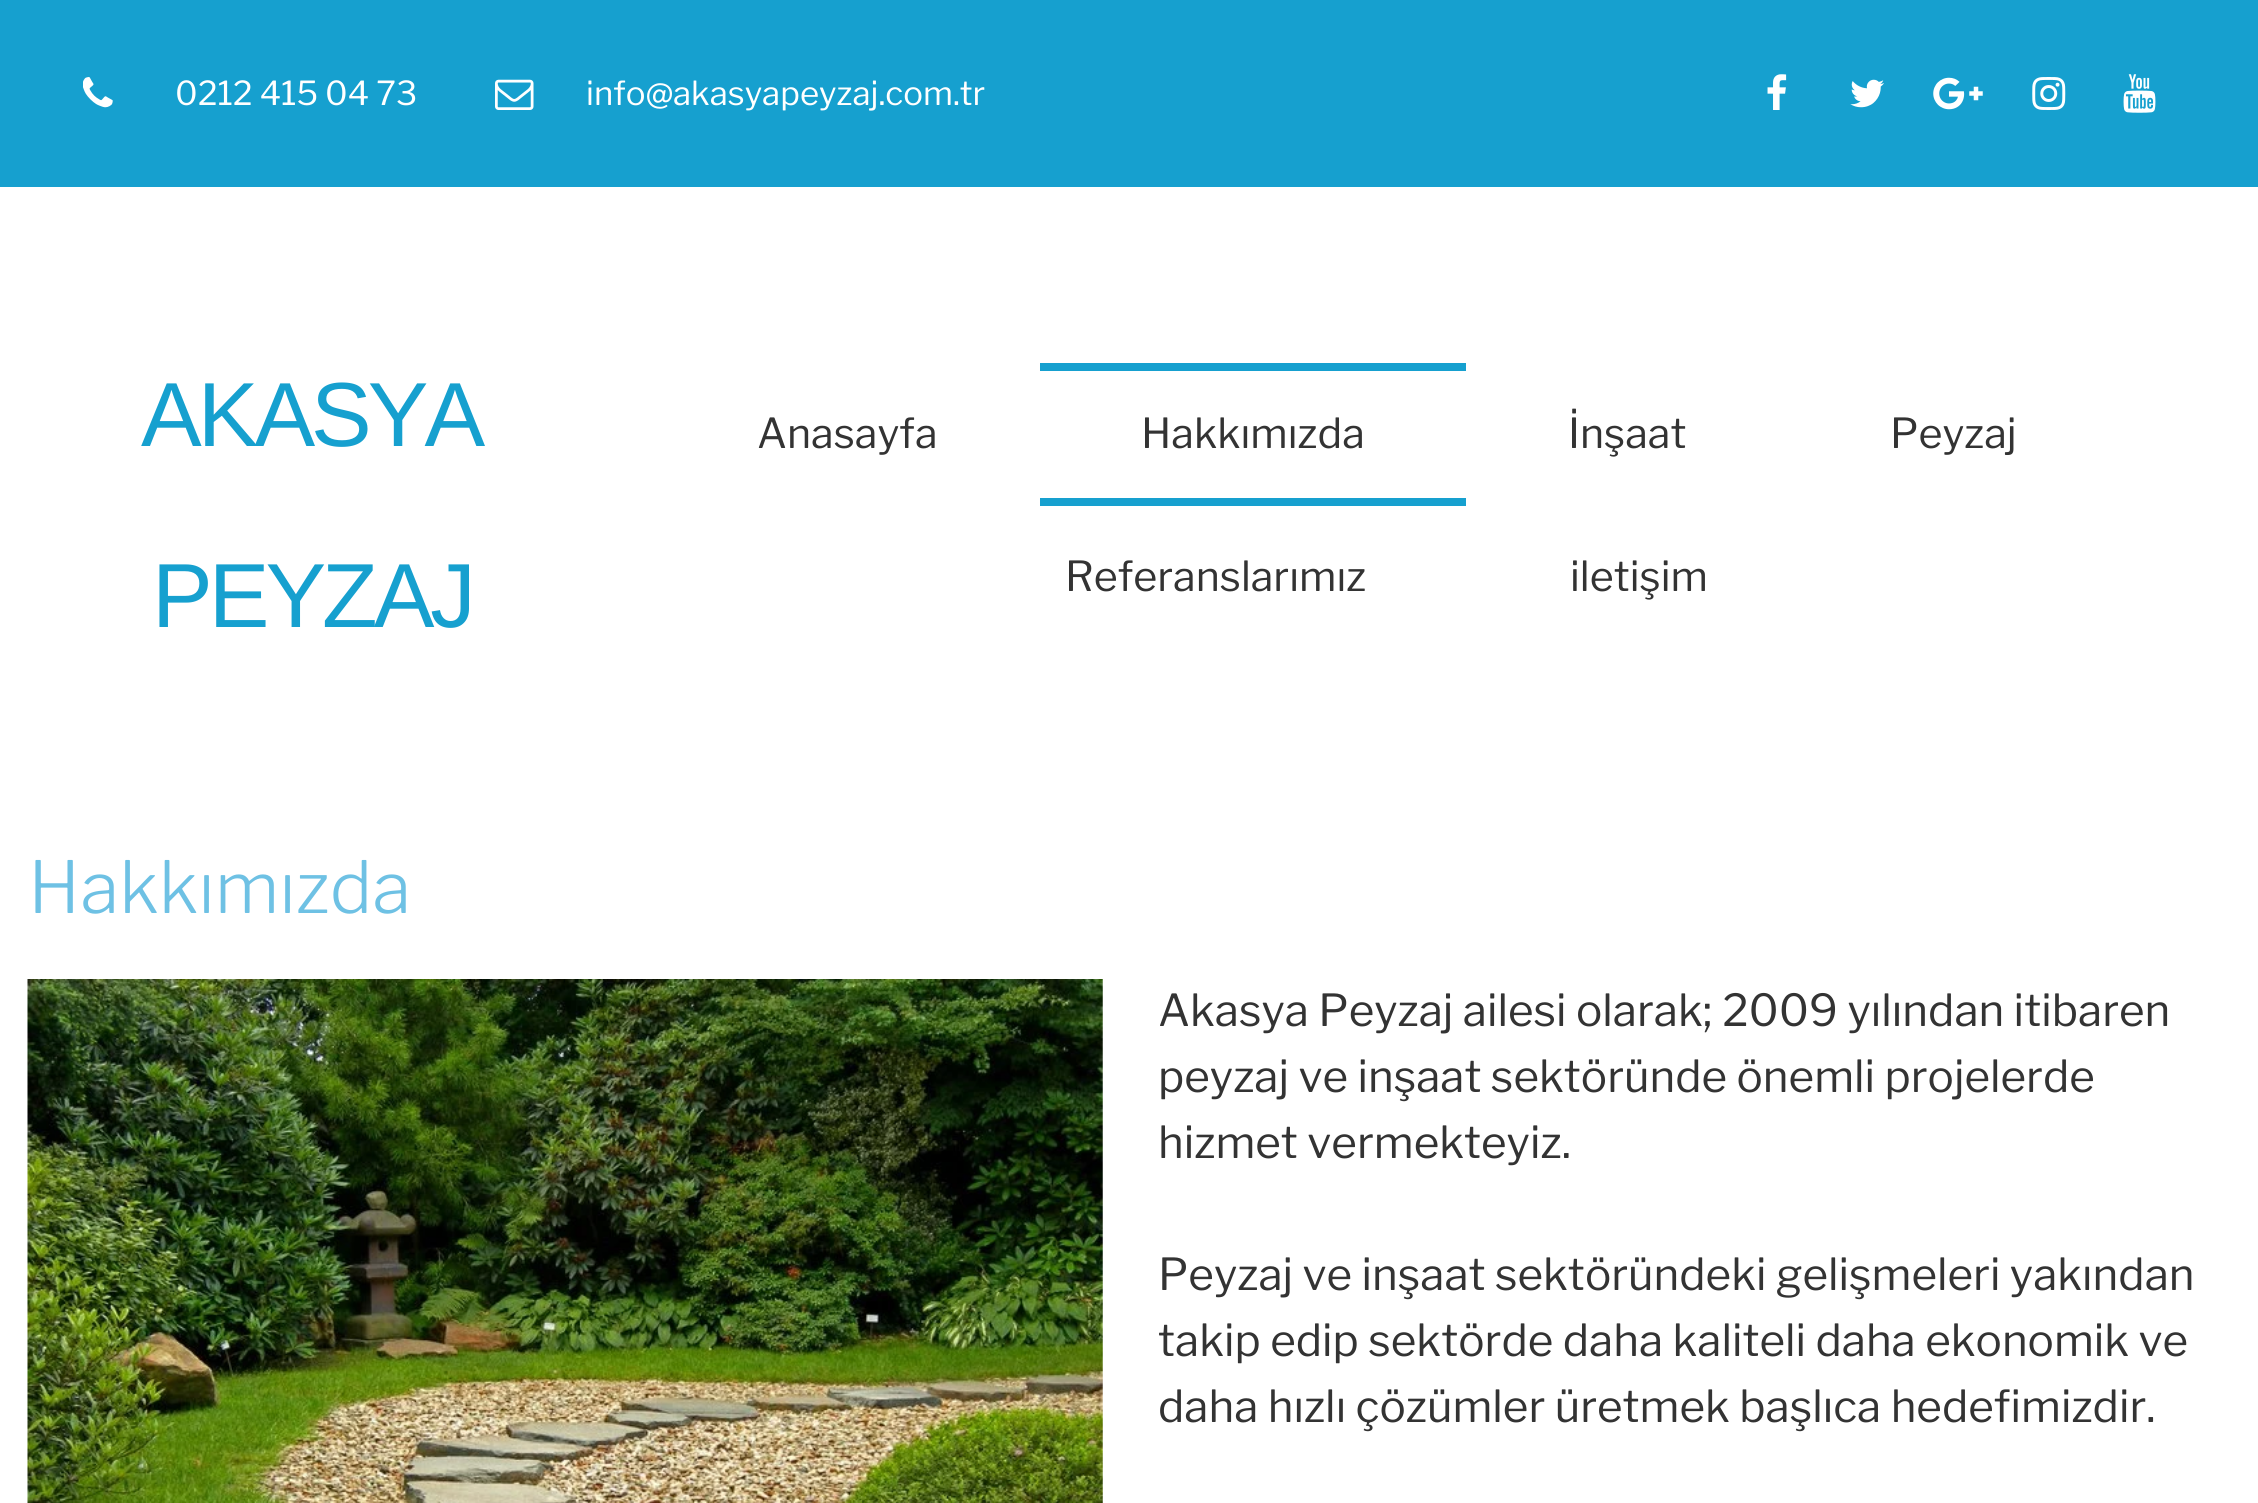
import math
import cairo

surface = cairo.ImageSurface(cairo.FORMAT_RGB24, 2258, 1503)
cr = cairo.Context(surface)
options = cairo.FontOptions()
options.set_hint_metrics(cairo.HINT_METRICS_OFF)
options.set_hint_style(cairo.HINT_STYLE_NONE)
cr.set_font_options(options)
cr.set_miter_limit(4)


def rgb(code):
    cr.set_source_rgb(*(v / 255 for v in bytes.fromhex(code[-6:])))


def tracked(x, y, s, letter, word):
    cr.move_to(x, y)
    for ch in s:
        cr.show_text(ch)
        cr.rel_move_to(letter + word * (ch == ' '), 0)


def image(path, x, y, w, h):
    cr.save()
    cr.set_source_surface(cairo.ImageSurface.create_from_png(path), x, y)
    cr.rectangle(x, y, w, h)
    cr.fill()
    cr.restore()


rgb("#ffffff")
cr.paint()
rgb("#16a0cf")
cr.rectangle(0, 0, 2258, 187)
cr.fill()
image("img/1.png", 83, 77, 30, 31)
image("img/2.png", 495, 79, 39, 31)
image("img/3.png", 1767, 74, 20, 36)
image("img/4.png", 1850, 79, 34, 29)
image("img/5.png", 1933, 77, 50, 33)
image("img/6.png", 2032, 77, 34, 33)
image("img/7.png", 2123, 74, 33, 39)
cr.rectangle(1040, 363, 426, 8)
cr.fill()
cr.rectangle(1040, 498, 426, 8)
cr.fill()
image("img/8.png", 27, 979, 1076, 524)
cr.select_font_face("Libre Franklin Thin")
cr.set_font_size(33)
rgb("#ffffff")
cr.move_to(175, 105)
cr.show_text("0212 415 04 73")
cr.move_to(586, 105)
cr.show_text("info@akasyapeyzaj.com.tr")
cr.select_font_face("Liberation Sans")
cr.set_font_size(91)
rgb("#16a0cf")
tracked(141, 446, "AKASYA", -4, 0)
tracked(152, 627, "PEYZAJ", -4, 0)
cr.select_font_face("Libre Franklin Thin")
cr.set_font_size(41.25)
rgb("#333333")
for x, y, s in [
    (757, 448, "Anasayfa"),
    (1141, 448, "Hakkımızda"),
    (1568, 448, "İnşaat"),
    (1890, 448, "Peyzaj"),
    (1065, 591, "Referanslarımız"),
    (1570, 591, "iletişim"),
]:
    cr.move_to(x, y)
    cr.show_text(s)
cr.select_font_face("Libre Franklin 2 Thin")
cr.set_font_size(71.5)
rgb("#6ec1e4")
cr.move_to(28, 913)
cr.show_text("Hakkımızda")
cr.select_font_face("Libre Franklin Thin")
cr.set_font_size(44)
rgb("#333333")
for x, y, s in [
    (1158, 1026, "Akasya Peyzaj ailesi olarak; 2009 yılından itibaren"),
    (1158, 1092, "peyzaj ve inşaat sektöründe önemli projelerde"),
    (1158, 1158, "hizmet vermekteyiz."),
    (1158, 1290, "Peyzaj ve inşaat sektöründeki gelişmeleri yakından"),
    (1158, 1356, "takip edip sektörde daha kaliteli daha ekonomik ve"),
    (1158, 1422, "daha hızlı çözümler üretmek başlıca hedefimizdir."),
]:
    cr.move_to(x, y)
    cr.show_text(s)
surface.write_to_png("page.png")
